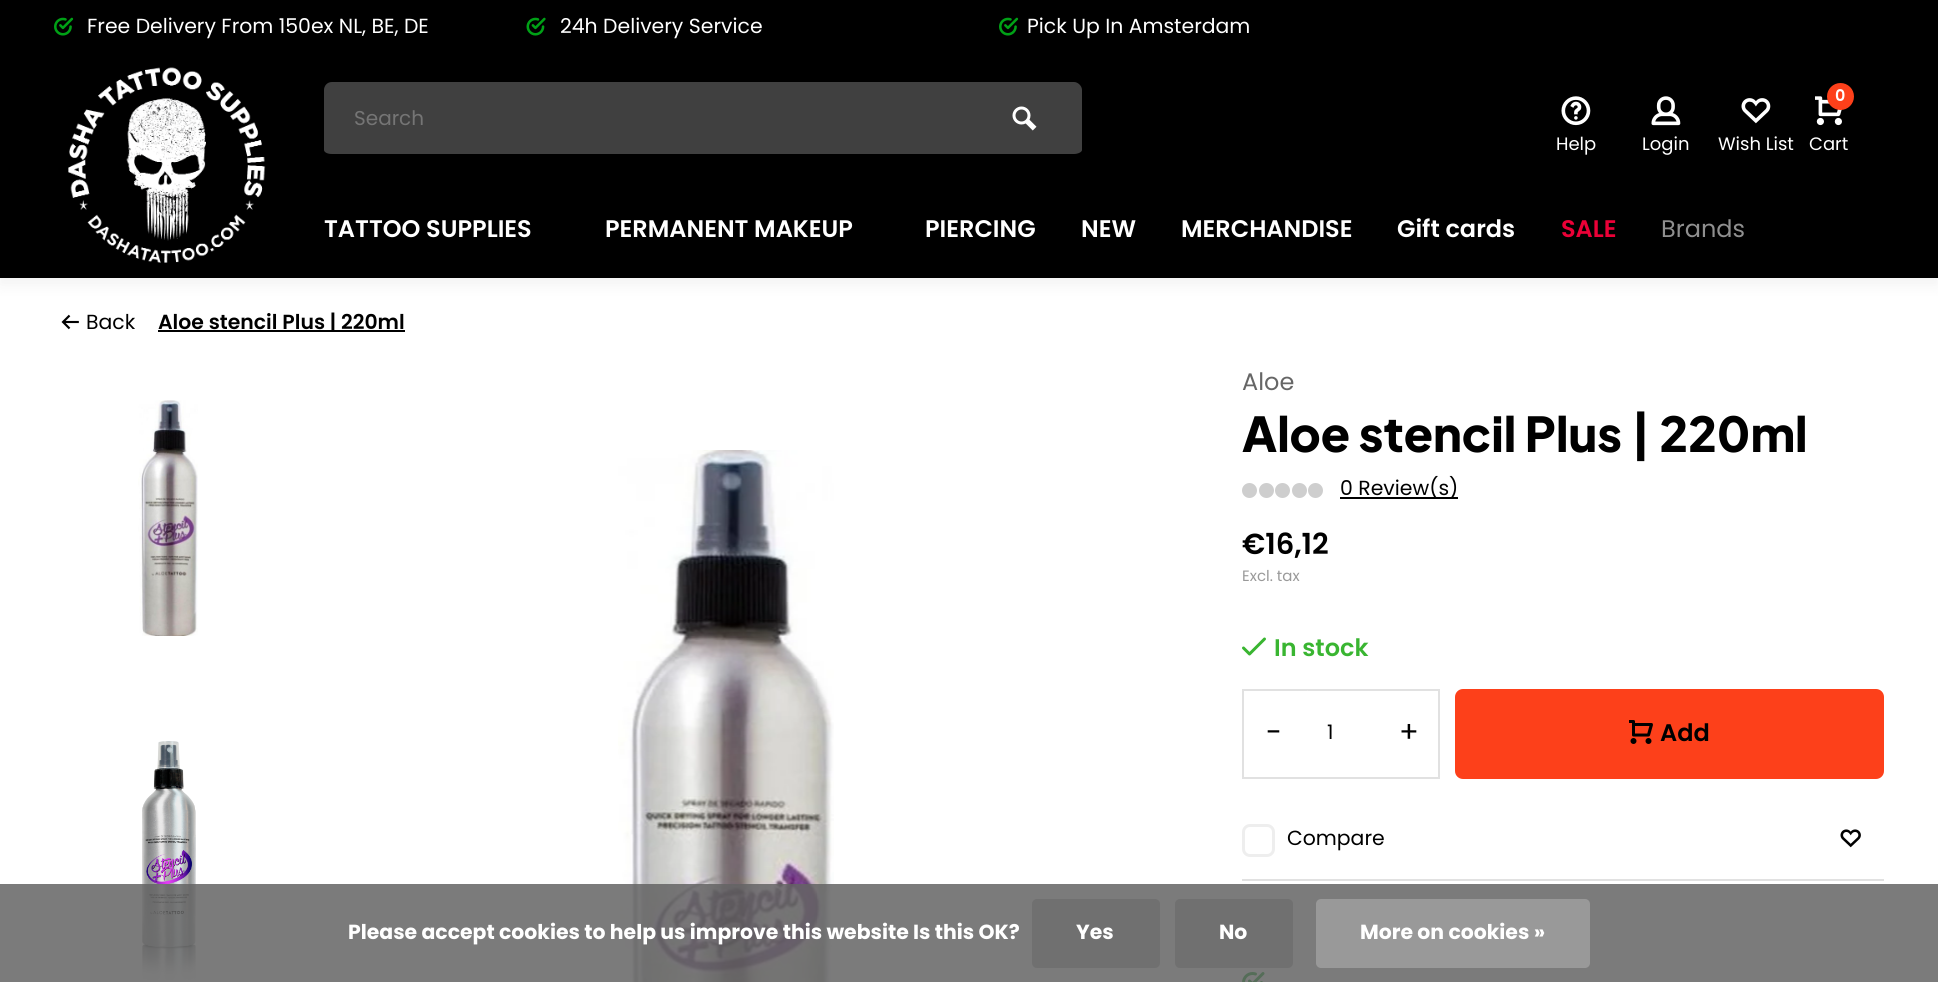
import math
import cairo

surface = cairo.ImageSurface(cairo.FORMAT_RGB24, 1938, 982)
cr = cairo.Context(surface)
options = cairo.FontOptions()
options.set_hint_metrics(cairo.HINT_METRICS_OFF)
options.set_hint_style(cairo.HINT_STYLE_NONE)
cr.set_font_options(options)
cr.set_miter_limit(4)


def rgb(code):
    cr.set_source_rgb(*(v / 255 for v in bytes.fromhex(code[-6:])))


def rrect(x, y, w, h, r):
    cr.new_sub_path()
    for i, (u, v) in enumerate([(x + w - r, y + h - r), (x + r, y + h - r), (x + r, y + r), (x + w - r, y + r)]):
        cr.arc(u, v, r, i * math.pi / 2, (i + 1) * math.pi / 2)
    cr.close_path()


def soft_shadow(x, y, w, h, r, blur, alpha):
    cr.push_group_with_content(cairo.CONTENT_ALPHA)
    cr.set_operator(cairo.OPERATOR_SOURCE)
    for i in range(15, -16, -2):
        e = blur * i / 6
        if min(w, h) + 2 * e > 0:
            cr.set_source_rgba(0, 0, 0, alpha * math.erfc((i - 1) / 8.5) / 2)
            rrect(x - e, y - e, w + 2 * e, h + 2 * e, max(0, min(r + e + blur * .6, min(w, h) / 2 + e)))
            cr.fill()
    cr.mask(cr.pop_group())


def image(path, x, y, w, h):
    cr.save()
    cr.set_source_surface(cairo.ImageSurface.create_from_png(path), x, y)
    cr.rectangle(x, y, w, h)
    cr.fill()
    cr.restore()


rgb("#ffffff")
cr.paint()
rgb("#000000")
soft_shadow(0, 60, 1938, 225, 0, 7.5, 0.05)
rgb("#000000")
cr.rectangle(0, 0, 1938, 278)
cr.fill()
image("img/1.png", 54, 17, 20, 19)
image("img/2.png", 526, 17, 20, 19)
image("img/1.png", 999, 17, 20, 19)
image("img/3.png", 68, 67, 198, 196)
rgb("#404040")
cr.new_path()
cr.move_to(332, 82)
cr.line_to(968, 82)
cr.line_to(968, 154)
cr.line_to(332, 154)
cr.curve_to(327, 154, 324, 152, 324, 150)
cr.line_to(324, 90)
cr.curve_to(324, 86, 327, 82, 332, 82)
cr.close_path()
cr.fill()
cr.new_path()
cr.move_to(968, 82)
cr.line_to(1074, 82)
cr.curve_to(1078, 82, 1082, 86, 1082, 90)
cr.line_to(1082, 150)
cr.curve_to(1082, 152, 1078, 154, 1074, 154)
cr.line_to(968, 154)
cr.close_path()
cr.fill()
image("img/4.png", 1012, 106, 25, 25)
image("img/5.png", 1561, 96, 30, 30)
image("img/6.png", 1651, 96, 30, 30)
image("img/7.png", 1741, 98, 30, 26)
image("img/8.png", 1815, 96, 27, 30)
rgb("#fd401a")
cr.arc(1840.5, 96.5, 13.5, 0, 2 * math.pi)
cr.fill()
image("img/9.png", 61, 314, 18, 16)
rgb("#000000")
cr.rectangle(158, 330, 247, 2)
cr.fill()
image("img/10.png", 138, 400, 60, 236)
image("img/11.png", 142, 741, 54, 239)
image("img/12.png", 618, 450, 216, 532)
rgb("#cecece")
cr.arc(1249.5, 490.5, 7.5, 0, 2 * math.pi)
cr.fill()
cr.arc(1266.5, 490.5, 7.5, 0, 2 * math.pi)
cr.fill()
cr.arc(1282.5, 490.5, 7.5, 0, 2 * math.pi)
cr.fill()
cr.arc(1299.5, 490.5, 7.5, 0, 2 * math.pi)
cr.fill()
cr.arc(1315.5, 490.5, 7.5, 0, 2 * math.pi)
cr.fill()
rgb("#000000")
cr.rectangle(1340, 497, 118, 2)
cr.fill()
image("img/13.png", 1242, 637, 24, 19)
cr.rectangle(1243, 690, 196, 88)
rgb("#e1e1e1")
cr.stroke()
rgb("#ffffff")
cr.new_path()
cr.move_to(1311, 690)
cr.line_to(1371, 690)
cr.curve_to(1375, 690, 1378, 693, 1378, 696)
cr.line_to(1378, 771)
cr.curve_to(1378, 774, 1375, 777, 1371, 777)
cr.line_to(1311, 777)
cr.curve_to(1307, 777, 1304, 774, 1304, 771)
cr.line_to(1304, 696)
cr.curve_to(1304, 693, 1307, 690, 1311, 690)
cr.close_path()
cr.fill()
rgb("#e1e1e1")
cr.rectangle(1308, 690, 68, 1)
cr.fill()
rgb("#fd401a")
rrect(1456.5, 690.5, 426, 87, 6.5)
cr.fill_preserve()
cr.set_line_width(3)
cr.stroke()
image("img/14.png", 1629, 720, 24, 24)
rgb("#e1e1e1")
cr.rectangle(1242, 879, 642, 2)
cr.fill()
rrect(1243.5, 825.5, 30, 30, 6.5)
rgb("#eeeeee")
cr.stroke()
image("img/15.png", 1840, 829, 21, 19)
image("img/16.png", 1242, 972, 23, 10)
cr.set_source_rgba(0.392, 0.392, 0.392, 0.85)
cr.rectangle(0, 884, 1938, 98)
cr.fill()
rgb("#707070")
rrect(1032, 899, 128, 69, 5)
cr.fill()
rrect(1175, 899, 118, 69, 5)
cr.fill()
rgb("#999999")
rrect(1316, 899, 274, 69, 5)
cr.fill()
cr.select_font_face("Poppins")
cr.set_font_size(20.4)
rgb("#ffffff")
for x, y, s in [
    (87, 33, "Free Delivery From 150ex NL, BE, DE"),
    (560, 33, "24h Delivery Service"),
    (1027, 33, "Pick Up In Amsterdam"),
]:
    cr.move_to(x, y)
    cr.show_text(s)
cr.set_font_size(20)
rgb("#757575")
cr.move_to(354, 125)
cr.show_text("Search")
cr.set_font_size(18)
rgb("#ffffff")
for x, y, s in [
    (1556, 150, "Help"),
    (1642, 150, "Login"),
    (1718, 150, "Wish List"),
]:
    cr.move_to(x, y)
    cr.show_text(s)
cr.select_font_face("Poppins SemiBold")
cr.set_font_size(16)
cr.move_to(1835, 101)
cr.show_text("0")
cr.select_font_face("Poppins")
cr.set_font_size(18)
cr.move_to(1809, 150)
cr.show_text("Cart")
cr.select_font_face("Poppins SemiBold")
cr.set_font_size(24)
for x, y, s in [
    (324, 237, "TATTOO SUPPLIES"),
    (605, 237, "PERMANENT MAKEUP"),
    (925, 237, "PIERCING"),
    (1081, 237, "NEW"),
    (1181, 237, "MERCHANDISE"),
    (1397, 237, "Gift cards"),
]:
    cr.move_to(x, y)
    cr.show_text(s)
rgb("#eb0037")
cr.move_to(1561, 237)
cr.show_text("SALE")
cr.select_font_face("Poppins")
rgb("#8f8f8f")
cr.move_to(1661, 237)
cr.show_text("Brands")
cr.set_font_size(20.4)
rgb("#000000")
cr.move_to(86, 329)
cr.show_text("Back")
cr.select_font_face("Poppins SemiBold")
cr.move_to(158, 329)
cr.show_text("Aloe stencil Plus | 220ml")
cr.select_font_face("Poppins")
cr.set_font_size(24)
rgb("#666666")
cr.move_to(1242, 390)
cr.show_text("Aloe")
cr.select_font_face("Plus Jakarta Sans ExtraBold")
cr.set_font_size(48)
rgb("#000000")
cr.move_to(1242, 452)
cr.show_text("Aloe stencil Plus | 220ml")
cr.select_font_face("Poppins")
cr.set_font_size(20.4)
cr.move_to(1340, 495)
cr.show_text("0 Review(s)")
cr.select_font_face("Poppins SemiBold")
cr.set_font_size(29)
cr.move_to(1242, 554)
cr.show_text("€16,12")
cr.select_font_face("Poppins")
cr.set_font_size(15)
rgb("#999999")
cr.move_to(1242, 581)
cr.show_text("Excl. tax")
cr.select_font_face("Poppins SemiBold")
cr.set_font_size(24)
rgb("#39b531")
cr.move_to(1274, 656)
cr.show_text("In stock")
cr.select_font_face("Poppins")
cr.set_font_size(29)
rgb("#000000")
cr.move_to(1266, 742)
cr.show_text("-")
cr.set_font_size(20)
cr.move_to(1327, 739)
cr.show_text("1")
cr.set_font_size(29)
cr.move_to(1399, 742)
cr.show_text("+")
cr.select_font_face("Poppins SemiBold")
cr.set_font_size(24)
cr.move_to(1660, 741)
cr.show_text("Add")
cr.select_font_face("Poppins")
cr.set_font_size(20.4)
cr.move_to(1287, 845)
cr.show_text("Compare")
cr.select_font_face("Poppins", cairo.FONT_SLANT_NORMAL, cairo.FONT_WEIGHT_BOLD)
rgb("#ffffff")
for x, y, s in [
    (348, 939, "Please accept cookies to help us improve this website Is this OK?"),
    (1076, 939, "Yes"),
    (1219, 939, "No"),
    (1360, 939, "More on cookies »"),
]:
    cr.move_to(x, y)
    cr.show_text(s)
surface.write_to_png("page.png")
